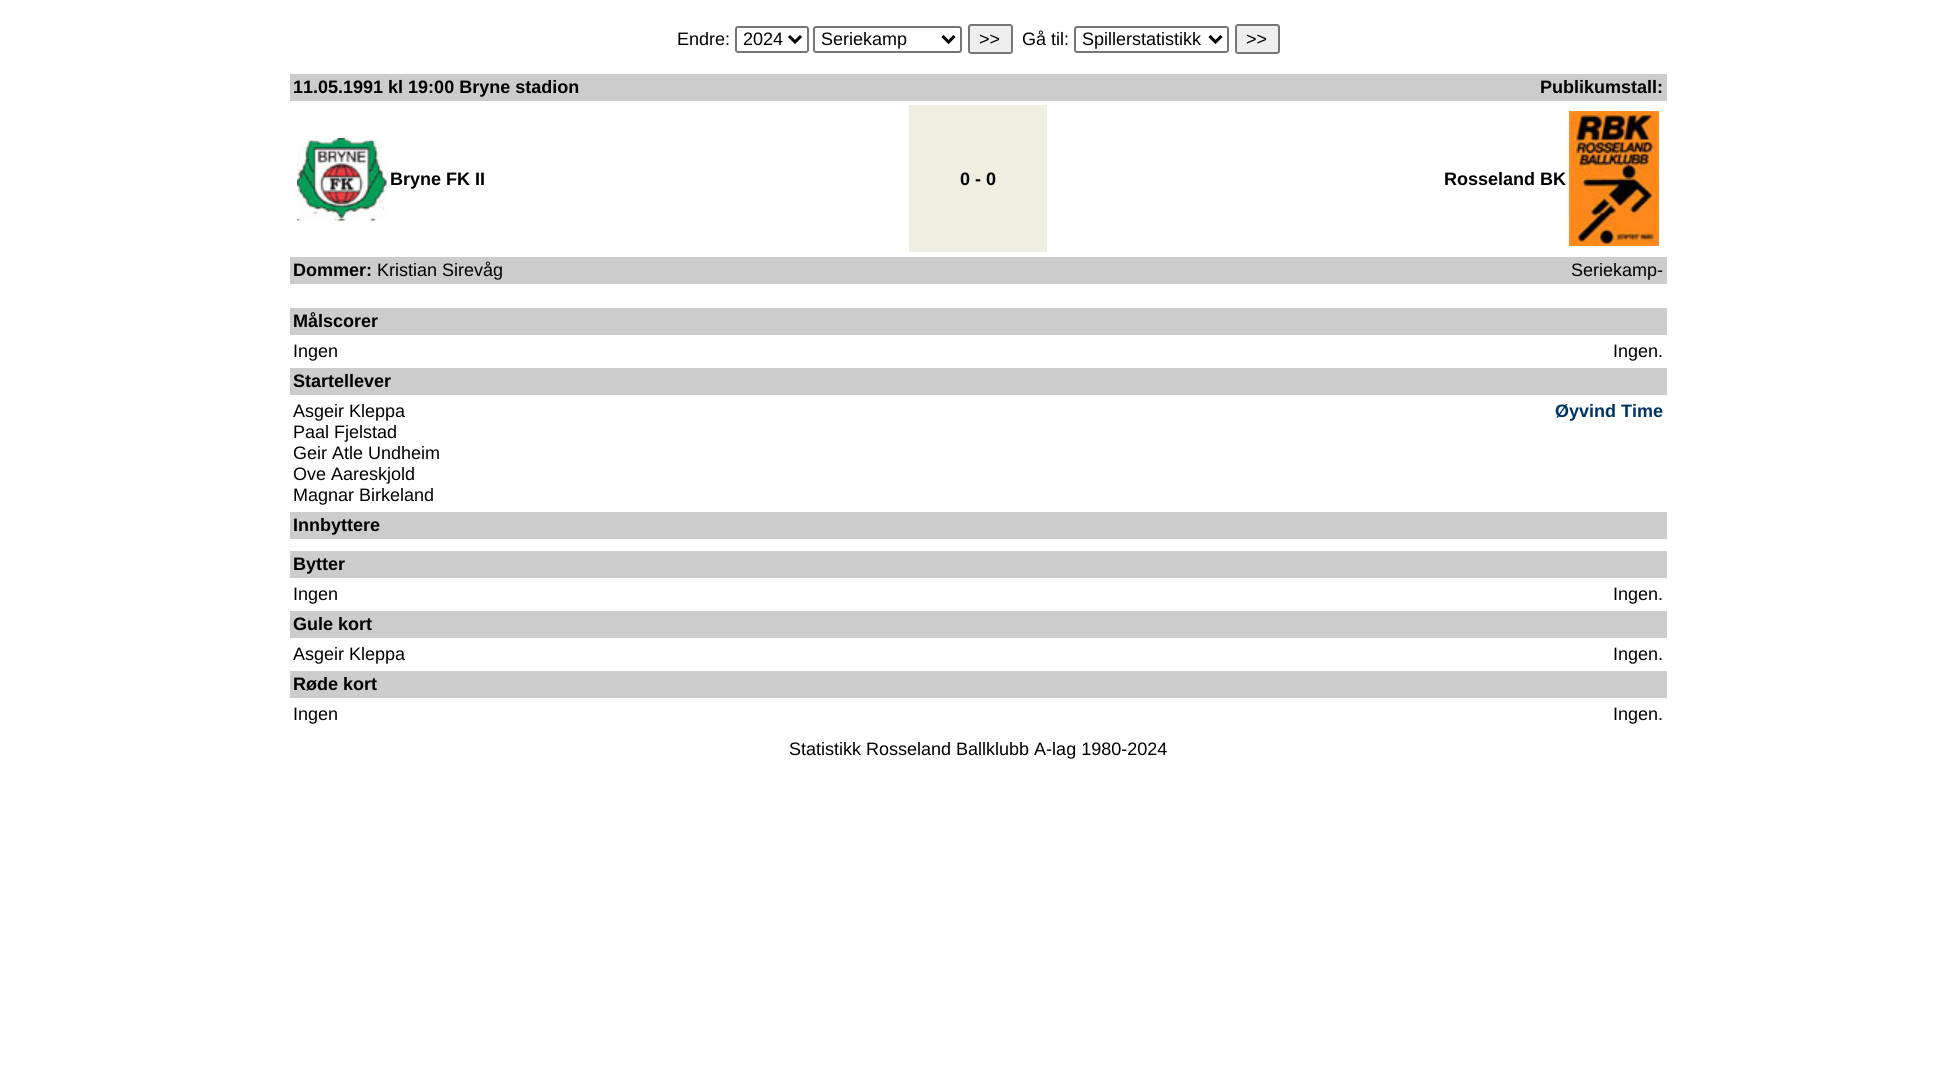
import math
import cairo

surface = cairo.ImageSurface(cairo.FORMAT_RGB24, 1956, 1077)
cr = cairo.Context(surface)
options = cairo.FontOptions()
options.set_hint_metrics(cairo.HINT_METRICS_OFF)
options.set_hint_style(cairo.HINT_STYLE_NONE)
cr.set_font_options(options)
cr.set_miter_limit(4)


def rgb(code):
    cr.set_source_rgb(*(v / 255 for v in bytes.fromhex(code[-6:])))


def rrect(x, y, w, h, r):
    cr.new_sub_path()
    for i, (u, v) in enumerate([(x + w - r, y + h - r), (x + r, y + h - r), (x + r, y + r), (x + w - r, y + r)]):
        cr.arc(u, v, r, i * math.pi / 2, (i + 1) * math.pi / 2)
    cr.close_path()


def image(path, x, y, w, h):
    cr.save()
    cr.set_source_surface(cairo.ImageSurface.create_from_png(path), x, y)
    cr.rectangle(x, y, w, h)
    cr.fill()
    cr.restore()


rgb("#ffffff")
cr.paint()
rrect(736, 27, 72, 25, 2)
rgb("#767676")
cr.stroke()
cr.new_path()
cr.move_to(789, 36)
cr.line_to(795, 42)
cr.line_to(801, 36)
rgb("#000000")
cr.set_line_width(3)
cr.stroke()
rrect(814, 27, 147, 25, 2)
rgb("#767676")
cr.set_line_width(2)
cr.stroke()
cr.new_path()
cr.move_to(942.5, 36)
cr.line_to(948.5, 42)
cr.line_to(954.5, 36)
rgb("#000000")
cr.set_line_width(3)
cr.stroke()
rgb("#efefef")
rrect(969, 25, 43, 28, 2)
cr.fill_preserve()
rgb("#767676")
cr.set_line_width(2)
cr.stroke()
rrect(1075, 27, 153, 25, 2)
cr.stroke()
cr.new_path()
cr.move_to(1209.5, 36)
cr.line_to(1215.5, 42)
cr.line_to(1221.5, 36)
rgb("#000000")
cr.set_line_width(3)
cr.stroke()
rgb("#efefef")
rrect(1236, 25, 43, 28, 2)
cr.fill_preserve()
rgb("#767676")
cr.set_line_width(2)
cr.stroke()
rgb("#cccccc")
cr.rectangle(290, 74, 1377, 27)
cr.fill()
image("img/1.png", 297, 138, 90, 83)
rgb("#eeefe1")
cr.rectangle(909, 105, 138, 147)
cr.fill()
image("img/2.png", 1569, 111, 90, 135)
for x, y, w, h, color in [
    (290, 257, 1377, 27, "#cccccc"),
    (290, 308, 1377, 27, "#cccccc"),
    (290, 368, 1377, 27, "#cccccc"),
    (290, 512, 1377, 27, "#cccccc"),
    (290, 551, 1377, 27, "#cccccc"),
    (290, 611, 1377, 27, "#cccccc"),
    (290, 671, 1377, 27, "#cccccc"),
]:
    rgb(color)
    cr.rectangle(x, y, w, h)
    cr.fill()
cr.select_font_face("Liberation Sans")
cr.set_font_size(18)
rgb("#000000")
for x, y, s in [
    (677, 45, "Endre:"),
    (743, 45, "2024"),
    (821, 45, "Seriekamp"),
    (979, 45, ">>"),
    (1022, 45, "Gå til:"),
    (1082, 45, "Spillerstatistikk"),
    (1246, 45, ">>"),
]:
    cr.move_to(x, y)
    cr.show_text(s)
cr.select_font_face("Liberation Sans", cairo.FONT_SLANT_NORMAL, cairo.FONT_WEIGHT_BOLD)
for x, y, s in [
    (293, 93, "11.05.1991 kl 19:00 Bryne stadion"),
    (1540, 93, "Publikumstall:"),
    (390, 185, "Bryne FK II"),
    (960, 185, "0 - 0"),
    (1444, 185, "Rosseland BK"),
    (293, 276, "Dommer:"),
]:
    cr.move_to(x, y)
    cr.show_text(s)
cr.select_font_face("Liberation Sans")
cr.move_to(377, 276)
cr.show_text("Kristian Sirevåg")
cr.move_to(1571, 276)
cr.show_text("Seriekamp-")
cr.select_font_face("Liberation Sans", cairo.FONT_SLANT_NORMAL, cairo.FONT_WEIGHT_BOLD)
cr.move_to(293, 327)
cr.show_text("Målscorer")
cr.select_font_face("Liberation Sans")
cr.move_to(293, 357)
cr.show_text("Ingen")
cr.move_to(1613, 357)
cr.show_text("Ingen.")
cr.select_font_face("Liberation Sans", cairo.FONT_SLANT_NORMAL, cairo.FONT_WEIGHT_BOLD)
cr.move_to(293, 387)
cr.show_text("Startellever")
cr.select_font_face("Liberation Sans")
for x, y, s in [
    (293, 417, "Asgeir Kleppa"),
    (293, 438, "Paal Fjelstad"),
    (293, 459, "Geir Atle Undheim"),
    (293, 480, "Ove Aareskjold"),
    (293, 501, "Magnar Birkeland"),
]:
    cr.move_to(x, y)
    cr.show_text(s)
cr.select_font_face("Liberation Sans", cairo.FONT_SLANT_NORMAL, cairo.FONT_WEIGHT_BOLD)
rgb("#003366")
cr.move_to(1555, 417)
cr.show_text("Øyvind Time")
rgb("#000000")
cr.move_to(293, 531)
cr.show_text("Innbyttere")
cr.move_to(293, 570)
cr.show_text("Bytter")
cr.select_font_face("Liberation Sans")
cr.move_to(293, 600)
cr.show_text("Ingen")
cr.move_to(1613, 600)
cr.show_text("Ingen.")
cr.select_font_face("Liberation Sans", cairo.FONT_SLANT_NORMAL, cairo.FONT_WEIGHT_BOLD)
cr.move_to(293, 630)
cr.show_text("Gule kort")
cr.select_font_face("Liberation Sans")
cr.move_to(293, 660)
cr.show_text("Asgeir Kleppa")
cr.move_to(1613, 660)
cr.show_text("Ingen.")
cr.select_font_face("Liberation Sans", cairo.FONT_SLANT_NORMAL, cairo.FONT_WEIGHT_BOLD)
cr.move_to(293, 690)
cr.show_text("Røde kort")
cr.select_font_face("Liberation Sans")
for x, y, s in [
    (293, 720, "Ingen"),
    (1613, 720, "Ingen."),
    (789, 755, "Statistikk Rosseland Ballklubb A-lag 1980-2024"),
]:
    cr.move_to(x, y)
    cr.show_text(s)
surface.write_to_png("page.png")
